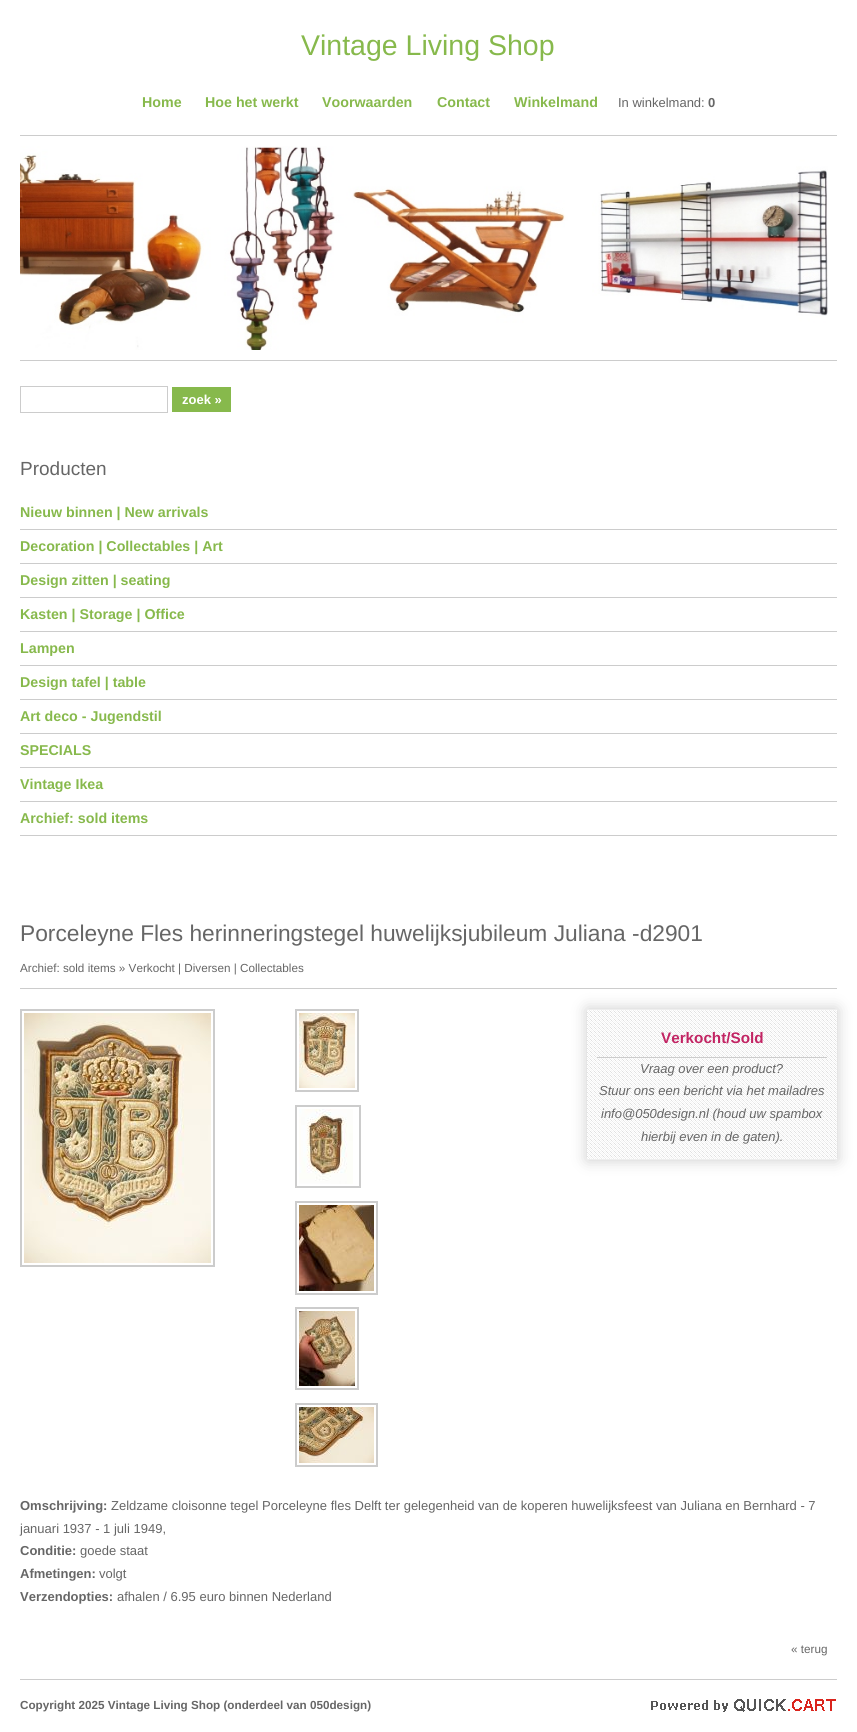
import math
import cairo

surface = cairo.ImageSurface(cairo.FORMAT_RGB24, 857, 1732)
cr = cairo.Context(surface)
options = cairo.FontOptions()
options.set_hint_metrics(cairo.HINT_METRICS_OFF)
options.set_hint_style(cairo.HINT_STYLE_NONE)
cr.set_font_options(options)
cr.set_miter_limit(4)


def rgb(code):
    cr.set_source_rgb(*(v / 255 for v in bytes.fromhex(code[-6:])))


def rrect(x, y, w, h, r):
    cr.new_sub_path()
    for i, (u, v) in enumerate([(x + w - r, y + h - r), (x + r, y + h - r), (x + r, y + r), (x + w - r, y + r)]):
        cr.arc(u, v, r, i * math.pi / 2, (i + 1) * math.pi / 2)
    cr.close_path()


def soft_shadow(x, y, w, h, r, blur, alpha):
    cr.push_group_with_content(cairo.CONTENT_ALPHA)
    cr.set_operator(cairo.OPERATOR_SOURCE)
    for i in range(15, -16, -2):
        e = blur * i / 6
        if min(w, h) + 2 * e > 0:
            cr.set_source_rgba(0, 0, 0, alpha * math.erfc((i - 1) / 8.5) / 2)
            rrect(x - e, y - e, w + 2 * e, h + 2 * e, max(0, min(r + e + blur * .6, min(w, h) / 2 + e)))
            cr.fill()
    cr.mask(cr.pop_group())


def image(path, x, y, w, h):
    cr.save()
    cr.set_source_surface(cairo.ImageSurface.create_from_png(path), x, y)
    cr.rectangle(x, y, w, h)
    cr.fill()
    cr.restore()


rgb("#ffffff")
cr.paint()
rgb("#cccccc")
cr.rectangle(20, 135, 817, 1)
cr.fill()
cr.rectangle(20, 360, 817, 1)
cr.fill()
image("img/1.png", 20, 146, 808, 204)
cr.rectangle(20, 1679, 817, 1)
cr.fill()
cr.rectangle(20.5, 386.5, 147, 26)
cr.set_line_width(1)
cr.stroke()
for x, y, w, h, color in [
    (172, 387, 59, 25, "#87b94c"),
    (20, 529, 817, 1, "#cccccc"),
    (20, 563, 817, 1, "#cccccc"),
    (20, 597, 817, 1, "#cccccc"),
    (20, 631, 817, 1, "#cccccc"),
    (20, 665, 817, 1, "#cccccc"),
    (20, 699, 817, 1, "#cccccc"),
    (20, 733, 817, 1, "#cccccc"),
    (20, 767, 817, 1, "#cccccc"),
    (20, 801, 817, 1, "#cccccc"),
    (20, 835, 817, 1, "#cccccc"),
    (20, 988, 817, 1, "#cccccc"),
]:
    rgb(color)
    cr.rectangle(x, y, w, h)
    cr.fill()
cr.rectangle(21, 1010, 193, 256)
cr.set_line_width(2)
cr.stroke()
image("img/2.png", 24, 1013, 187, 250)
cr.rectangle(296, 1010, 62, 81)
cr.stroke()
image("img/3.png", 299, 1013, 56, 75)
cr.rectangle(296, 1106, 64, 81)
cr.stroke()
image("img/4.png", 299, 1109, 54, 75)
cr.rectangle(296, 1202, 81, 92)
cr.stroke()
image("img/5.png", 299, 1205, 75, 86)
cr.rectangle(296, 1308, 62, 81)
cr.stroke()
image("img/6.png", 299, 1311, 56, 75)
cr.rectangle(296, 1404, 81, 62)
cr.stroke()
image("img/7.png", 299, 1407, 75, 56)
rgb("#cccccc")
soft_shadow(587, 1009, 250, 151, 0, 7.5, 1)
image("img/8.png", 587, 1010, 250, 149)
for x, y, w, h, color in [
    (587, 1009, 250, 1, "#eeeeee"),
    (587, 1159, 250, 1, "#eeeeee"),
    (597, 1057, 230, 1, "#cccccc"),
]:
    rgb(color)
    cr.rectangle(x, y, w, h)
    cr.fill()
image("img/9.png", 651, 1699, 185, 13)
cr.select_font_face("Liberation Sans")
cr.set_font_size(28.5)
rgb("#87b94c")
cr.move_to(301, 55)
cr.show_text("Vintage Living Shop")
cr.select_font_face("Liberation Sans", cairo.FONT_SLANT_NORMAL, cairo.FONT_WEIGHT_BOLD)
cr.set_font_size(14.25)
for x, y, s in [
    (142, 107, "Home"),
    (205, 107, "Hoe het werkt"),
    (322, 107, "Voorwaarden"),
    (437, 107, "Contact"),
    (514, 107, "Winkelmand"),
]:
    cr.move_to(x, y)
    cr.show_text(s)
cr.select_font_face("Liberation Sans")
cr.set_font_size(13)
rgb("#666666")
cr.move_to(618, 107)
cr.show_text("In winkelmand:")
cr.select_font_face("Liberation Sans", cairo.FONT_SLANT_NORMAL, cairo.FONT_WEIGHT_BOLD)
cr.move_to(708, 107)
cr.show_text("0")
rgb("#ffffff")
cr.move_to(182, 404)
cr.show_text("zoek »")
cr.select_font_face("Liberation Sans")
cr.set_font_size(19)
rgb("#666666")
cr.move_to(20, 475)
cr.show_text("Producten")
cr.select_font_face("Liberation Sans", cairo.FONT_SLANT_NORMAL, cairo.FONT_WEIGHT_BOLD)
cr.set_font_size(14.25)
rgb("#87b94c")
for x, y, s in [
    (20, 517, "Nieuw binnen | New arrivals"),
    (20, 551, "Decoration | Collectables | Art"),
    (20, 585, "Design zitten | seating"),
    (20, 619, "Kasten | Storage | Office"),
    (20, 653, "Lampen"),
    (20, 687, "Design tafel | table"),
    (20, 721, "Art deco - Jugendstil"),
    (20, 755, "SPECIALS"),
    (20, 789, "Vintage Ikea"),
    (20, 823, "Archief: sold items"),
]:
    cr.move_to(x, y)
    cr.show_text(s)
cr.select_font_face("Liberation Sans")
cr.set_font_size(22.75)
rgb("#666666")
cr.move_to(20, 941)
cr.show_text("Porceleyne Fles herinneringstegel huwelijksjubileum Juliana -d2901")
cr.set_font_size(11.7)
cr.move_to(20, 972)
cr.show_text("Archief: sold items » Verkocht | Diversen | Collectables")
cr.select_font_face("Liberation Sans", cairo.FONT_SLANT_NORMAL, cairo.FONT_WEIGHT_BOLD)
cr.set_font_size(15.25)
rgb("#c22463")
cr.move_to(661, 1043)
cr.show_text("Verkocht/Sold")
cr.select_font_face("Liberation Sans", cairo.FONT_SLANT_ITALIC)
cr.set_font_size(13)
rgb("#666666")
for x, y, s in [
    (640, 1073, "Vraag over een product?"),
    (599, 1095, "Stuur ons een bericht via het mailadres"),
    (601, 1118, "info@050design.nl (houd uw spambox"),
    (641, 1141, "hierbij even in de gaten)."),
]:
    cr.move_to(x, y)
    cr.show_text(s)
cr.select_font_face("Liberation Sans", cairo.FONT_SLANT_NORMAL, cairo.FONT_WEIGHT_BOLD)
cr.move_to(20, 1510)
cr.show_text("Omschrijving:")
cr.select_font_face("Liberation Sans")
cr.move_to(111, 1510)
cr.show_text("Zeldzame cloisonne tegel Porceleyne fles Delft ter gelegenheid van de koperen huwelijksfeest van Juliana en Bernhard - 7")
cr.move_to(20, 1533)
cr.show_text("januari 1937 - 1 juli 1949,")
cr.select_font_face("Liberation Sans", cairo.FONT_SLANT_NORMAL, cairo.FONT_WEIGHT_BOLD)
cr.move_to(20, 1555)
cr.show_text("Conditie:")
cr.select_font_face("Liberation Sans")
cr.move_to(80, 1555)
cr.show_text("goede staat")
cr.select_font_face("Liberation Sans", cairo.FONT_SLANT_NORMAL, cairo.FONT_WEIGHT_BOLD)
cr.move_to(20, 1578)
cr.show_text("Afmetingen:")
cr.select_font_face("Liberation Sans")
cr.move_to(99, 1578)
cr.show_text("volgt")
cr.select_font_face("Liberation Sans", cairo.FONT_SLANT_NORMAL, cairo.FONT_WEIGHT_BOLD)
cr.move_to(20, 1601)
cr.show_text("Verzendopties:")
cr.select_font_face("Liberation Sans")
cr.move_to(117, 1601)
cr.show_text("afhalen / 6.95 euro binnen Nederland")
cr.set_font_size(11.7)
cr.move_to(791, 1653)
cr.show_text("« terug")
cr.select_font_face("Liberation Sans", cairo.FONT_SLANT_NORMAL, cairo.FONT_WEIGHT_BOLD)
cr.move_to(20, 1709)
cr.show_text("Copyright 2025 Vintage Living Shop (onderdeel van 050design)")
surface.write_to_png("page.png")
